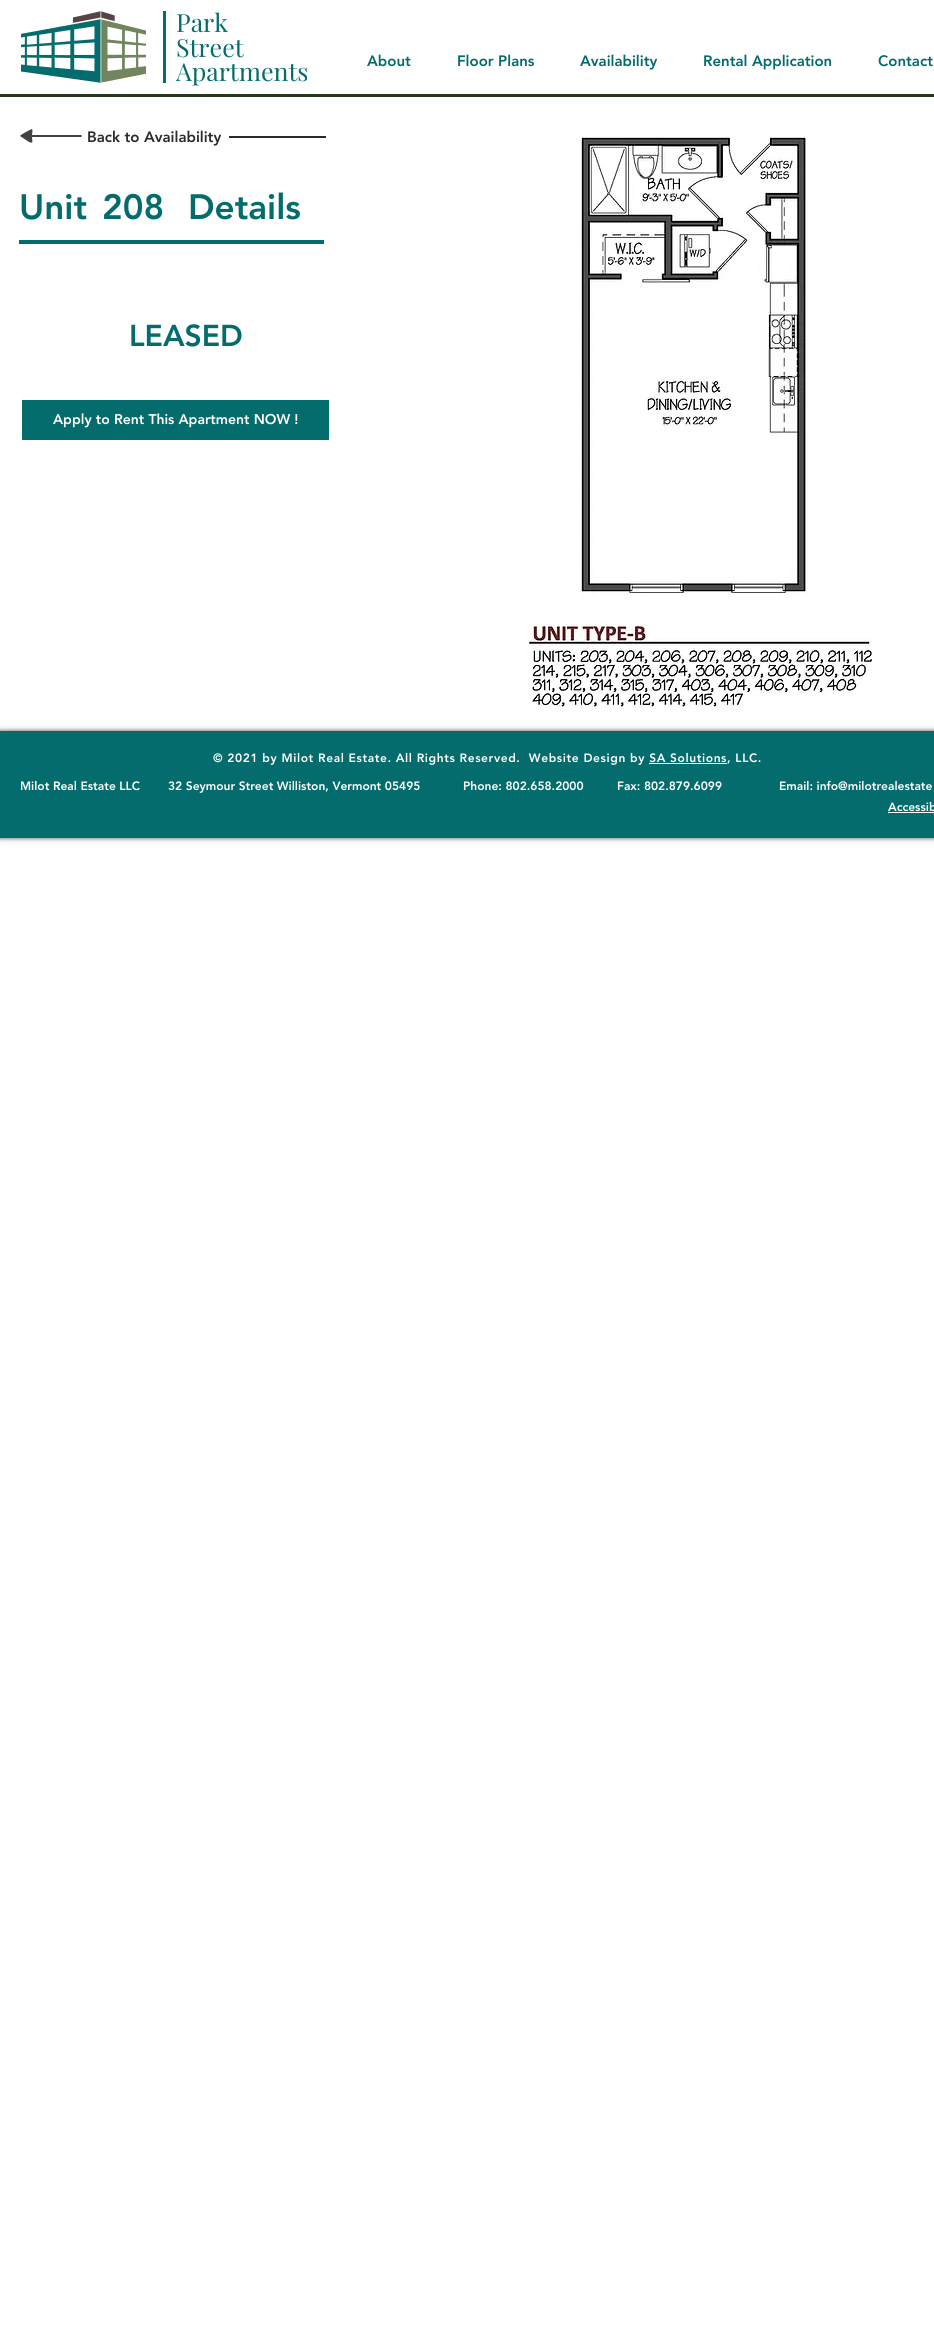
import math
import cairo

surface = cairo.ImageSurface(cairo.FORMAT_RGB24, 934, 2337)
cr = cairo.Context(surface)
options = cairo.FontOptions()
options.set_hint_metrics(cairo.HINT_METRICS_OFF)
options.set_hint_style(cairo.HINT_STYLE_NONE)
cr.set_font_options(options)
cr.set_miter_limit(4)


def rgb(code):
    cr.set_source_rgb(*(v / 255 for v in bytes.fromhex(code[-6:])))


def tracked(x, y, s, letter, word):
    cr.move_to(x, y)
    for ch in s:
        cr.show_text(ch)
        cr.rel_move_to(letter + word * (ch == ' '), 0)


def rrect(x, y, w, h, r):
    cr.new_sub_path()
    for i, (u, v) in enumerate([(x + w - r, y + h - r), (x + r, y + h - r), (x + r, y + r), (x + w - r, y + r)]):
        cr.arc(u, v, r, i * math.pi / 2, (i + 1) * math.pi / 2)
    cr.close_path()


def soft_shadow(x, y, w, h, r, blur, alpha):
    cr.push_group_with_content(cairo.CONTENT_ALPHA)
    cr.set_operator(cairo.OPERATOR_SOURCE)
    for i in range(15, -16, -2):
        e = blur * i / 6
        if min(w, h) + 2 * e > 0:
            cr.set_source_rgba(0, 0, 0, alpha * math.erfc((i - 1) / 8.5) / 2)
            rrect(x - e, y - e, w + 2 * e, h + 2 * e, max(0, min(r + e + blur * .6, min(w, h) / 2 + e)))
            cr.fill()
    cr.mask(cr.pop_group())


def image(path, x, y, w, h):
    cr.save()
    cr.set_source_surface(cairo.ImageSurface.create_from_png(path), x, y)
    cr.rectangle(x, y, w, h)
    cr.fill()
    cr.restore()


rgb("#ffffff")
cr.paint()
image("img/1.png", 21, 11, 125, 72)
rgb("#046c6c")
cr.rectangle(163, 11, 3, 72)
cr.fill()
rgb("#28381a")
cr.rectangle(0, 94, 934, 3)
cr.fill()
rgb("#424242")
cr.new_path()
cr.move_to(81, 135)
cr.line_to(32, 135)
cr.curve_to(32, 134, 33, 130, 32, 129)
cr.curve_to(31, 129, 20, 135, 20, 136)
cr.line_to(29, 142)
cr.curve_to(34, 144, 32, 141, 32, 137)
cr.line_to(81, 137)
cr.curve_to(82, 137, 82, 135, 81, 135)
cr.close_path()
cr.fill()
rgb("#2b2b2b")
cr.rectangle(229, 136, 97, 2)
cr.fill()
image("img/2.png", 528, 134, 344, 576)
rgb("#046c6c")
cr.rectangle(19, 240, 305, 4)
cr.fill()
cr.rectangle(22, 400, 307, 40)
cr.fill()
rgb("#000000")
soft_shadow(0, 731, 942, 107, 0, 2.5, 0.7)
for x, y, w, h, color in [
    (0, 731, 934, 107, "#046c6c"),
    (649, 763, 78, 1, "#ffffff"),
    (888, 812, 46, 1, "#ffffff"),
]:
    rgb(color)
    cr.rectangle(x, y, w, h)
    cr.fill()
cr.select_font_face("Playfair Display")
cr.set_font_size(25)
rgb("#046c6c")
for x, y, s in [
    (176, 32, "Park"),
    (176, 57, "Street"),
    (176, 81, "Apartments"),
]:
    cr.move_to(x, y)
    cr.show_text(s)
cr.select_font_face("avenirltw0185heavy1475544 Black")
cr.set_font_size(15)
for x, y, s in [
    (367, 66, "About"),
    (457, 66, "Floor Plans"),
    (580, 66, "Availability"),
    (703, 66, "Rental Application"),
    (878, 66, "Contact"),
]:
    cr.move_to(x, y)
    cr.show_text(s)
rgb("#2b2b2b")
cr.move_to(87, 142)
cr.show_text("Back to Availability")
cr.set_font_size(35)
rgb("#046c6c")
for x, y, s in [
    (188, 219, "Details"),
    (19, 219, "Unit"),
    (102, 219, "208"),
]:
    cr.move_to(x, y)
    cr.show_text(s)
cr.set_font_size(30)
cr.move_to(129, 346)
cr.show_text("LEASED")
cr.set_font_size(14)
rgb("#ffffff")
cr.move_to(53, 424)
cr.show_text("Apply to Rent This Apartment NOW !")
cr.set_font_size(12)
tracked(213, 762, "© 2021 by Milot Real Estate. All Rights Reserved.  Website Design by SA Solutions, LLC.", 0.6, 0)
for x, y, s in [
    (20, 790, "Milot Real Estate LLC"),
    (168, 790, "32 Seymour Street Williston, Vermont 05495"),
    (463, 790, "Phone: 802.658.2000"),
    (617, 790, "Fax: 802.879.6099"),
    (779, 790, "Email: info@milotrealestate"),
    (888, 811, "Accessib"),
]:
    cr.move_to(x, y)
    cr.show_text(s)
surface.write_to_png("page.png")
